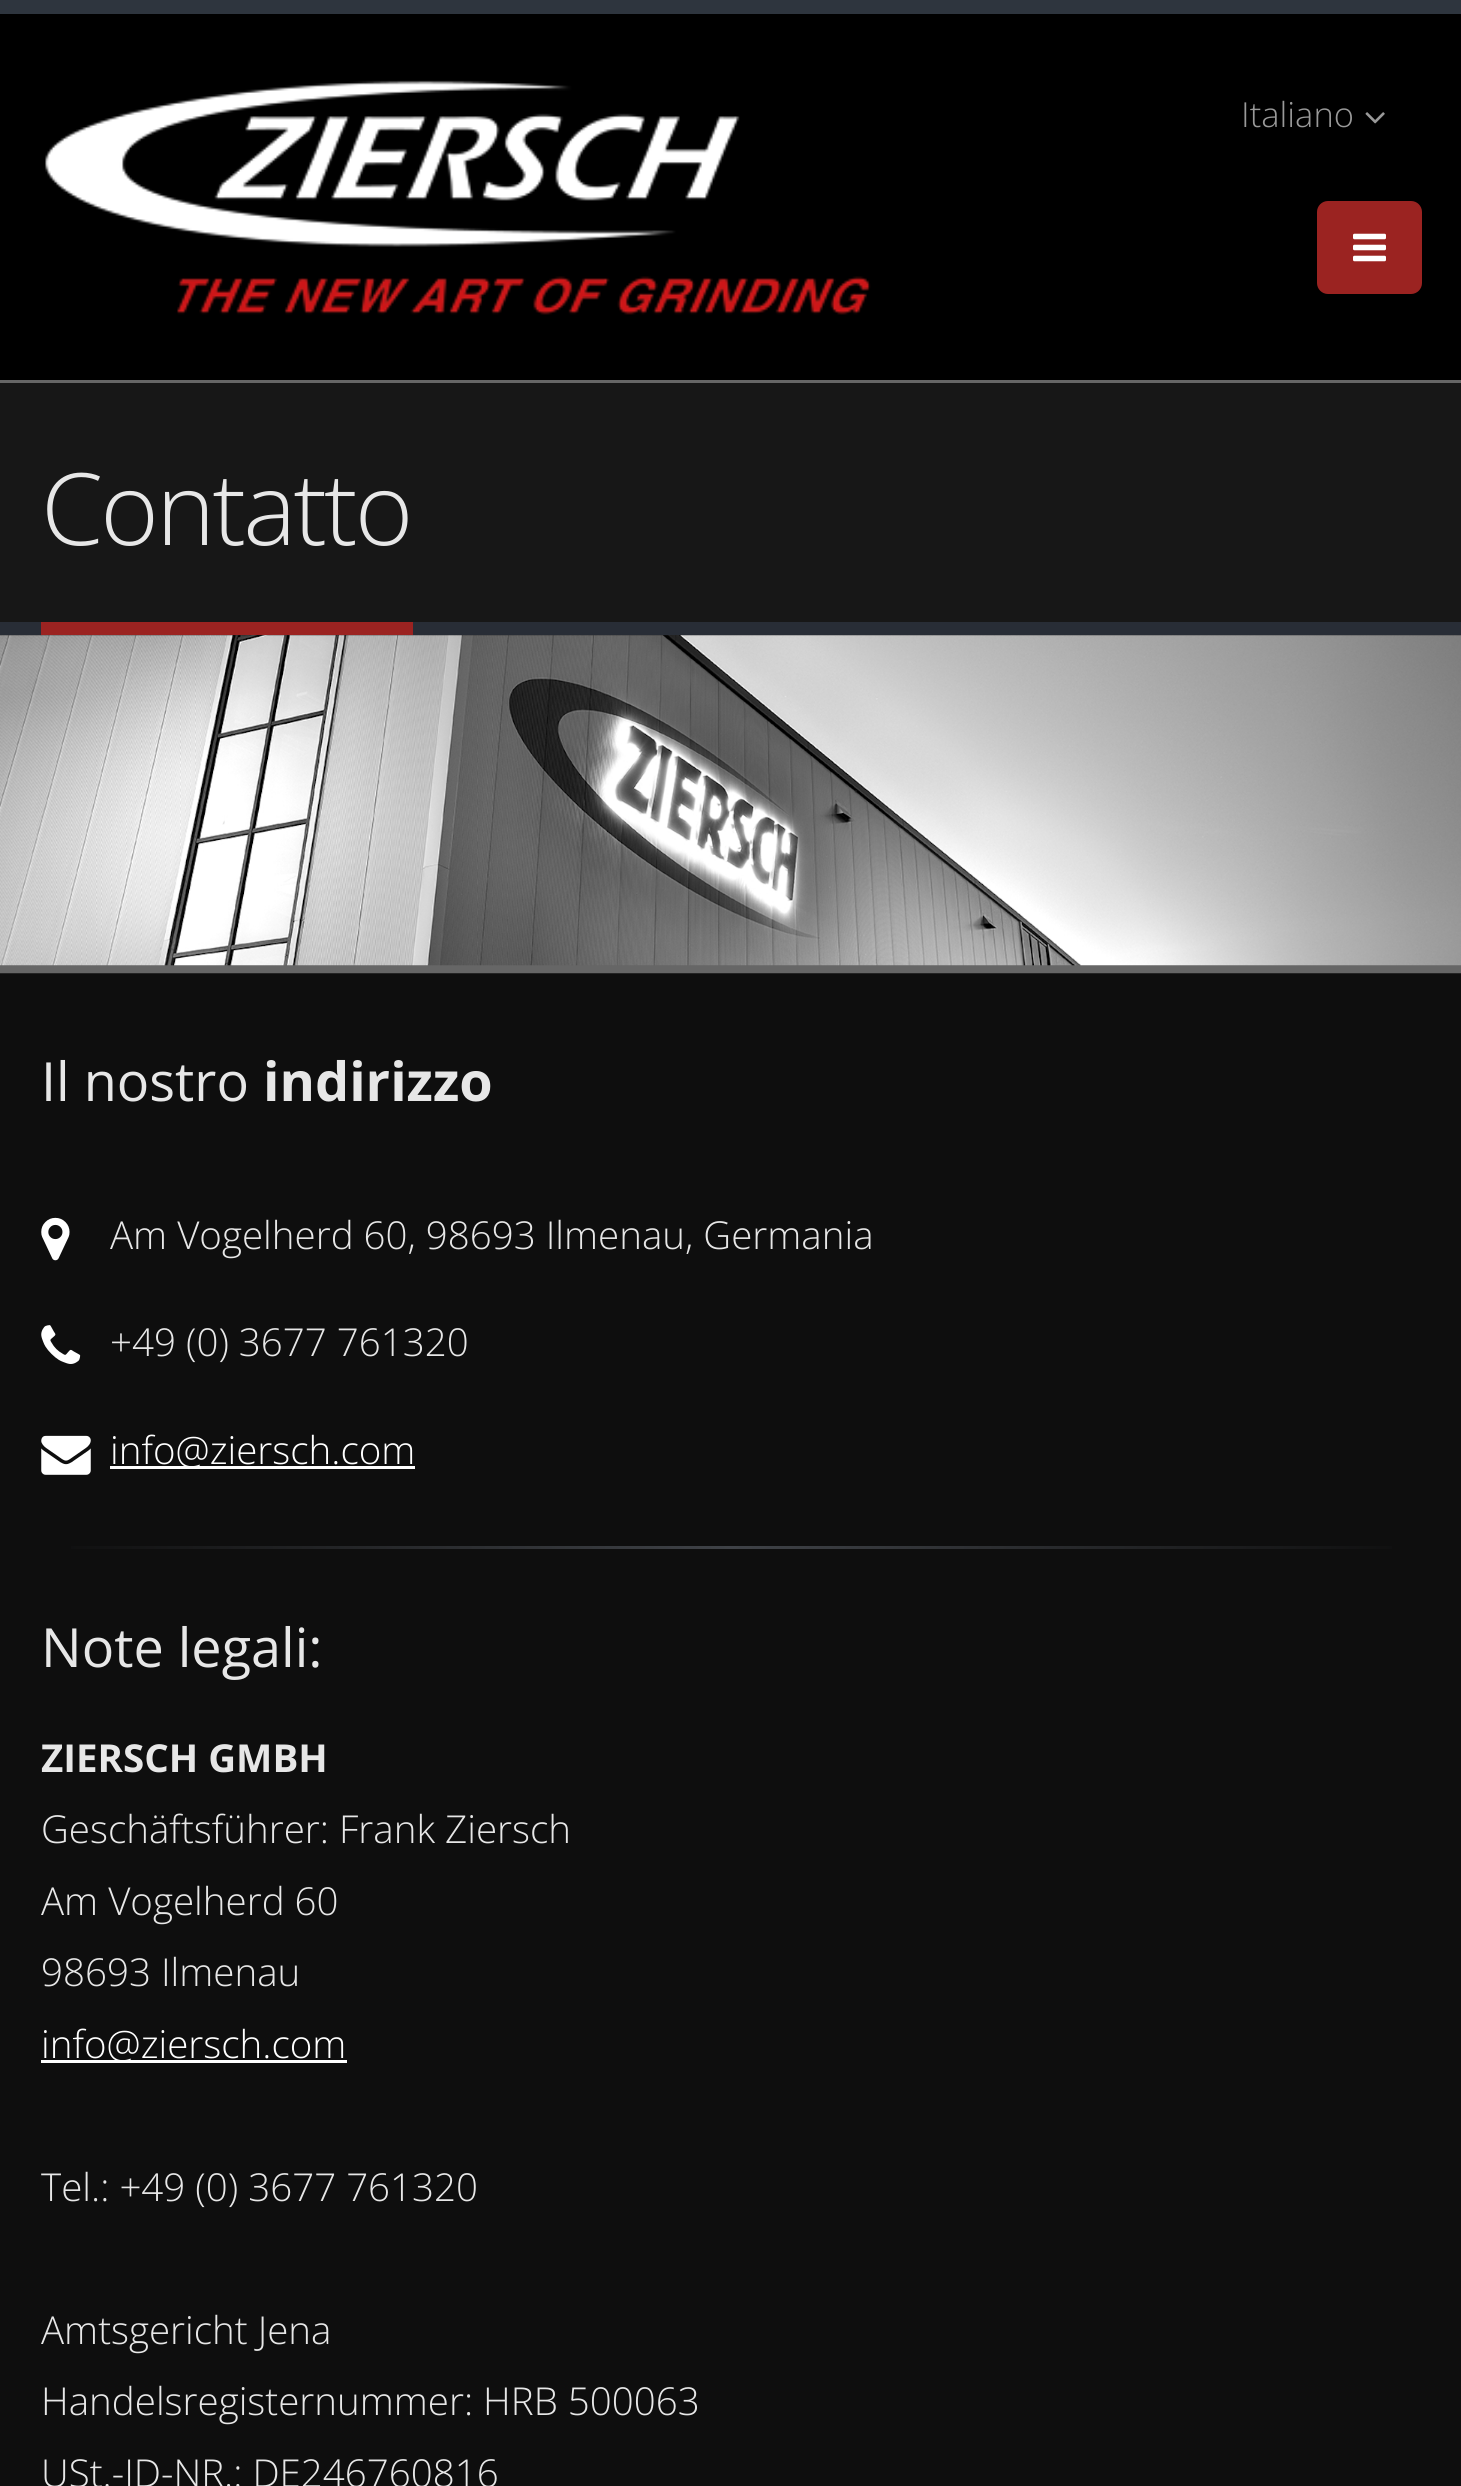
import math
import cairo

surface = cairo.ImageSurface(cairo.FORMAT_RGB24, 1461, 2486)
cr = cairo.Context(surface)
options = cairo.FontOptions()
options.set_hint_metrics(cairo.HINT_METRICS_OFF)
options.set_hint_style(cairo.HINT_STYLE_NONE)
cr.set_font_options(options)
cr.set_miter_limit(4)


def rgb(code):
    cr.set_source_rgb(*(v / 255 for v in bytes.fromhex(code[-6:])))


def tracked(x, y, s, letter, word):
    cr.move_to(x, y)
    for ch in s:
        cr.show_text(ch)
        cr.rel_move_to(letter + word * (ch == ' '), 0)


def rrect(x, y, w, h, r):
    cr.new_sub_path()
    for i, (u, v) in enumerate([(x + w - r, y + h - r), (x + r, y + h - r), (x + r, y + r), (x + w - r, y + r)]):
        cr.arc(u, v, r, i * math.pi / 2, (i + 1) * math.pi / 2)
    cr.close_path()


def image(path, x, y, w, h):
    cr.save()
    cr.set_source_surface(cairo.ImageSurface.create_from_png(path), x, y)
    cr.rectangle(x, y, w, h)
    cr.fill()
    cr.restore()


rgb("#0e0e0e")
cr.paint()
for x, y, w, h, color in [
    (0, 14, 1461, 366, "#000000"),
    (0, 0, 1461, 14, "#2e353e"),
    (0, 380, 1461, 3, "#666666"),
]:
    rgb(color)
    cr.rectangle(x, y, w, h)
    cr.fill()
image("img/1.png", 45, 80, 826, 235)
image("img/2.png", 1365, 112, 20, 12)
rgb("#9b2321")
rrect(1317, 201, 105, 93, 11)
cr.fill()
image("img/3.png", 1353, 233, 33, 29)
for x, y, w, h, color in [
    (0, 383, 1461, 239, "#171717"),
    (0, 622, 1461, 13, "#282d36"),
    (41, 622, 372, 13, "#9b2321"),
    (0, 635, 1461, 339, "#242424"),
    (0, 965, 1461, 8, "#666666"),
]:
    rgb(color)
    cr.rectangle(x, y, w, h)
    cr.fill()
image("img/4.png", 0, 635, 1461, 331)
image("img/5.png", 41, 1217, 29, 44)
image("img/6.png", 41, 1325, 40, 39)
image("img/7.png", 41, 1435, 50, 40)
rgb("#ffffff")
cr.rectangle(110, 1466, 305, 3)
cr.fill()
gradient = cairo.LinearGradient(41, 1547, 1422, 1547)
gradient.add_color_stop_rgba(0, 0.055, 0.055, 0.055, 1)
gradient.add_color_stop_rgba(0.5, 0.247, 0.259, 0.278, 1)
gradient.add_color_stop_rgba(1, 0.055, 0.055, 0.055, 1)
cr.set_source(gradient)
cr.rectangle(71, 1546, 1321, 3)
cr.fill()
rgb("#ffffff")
cr.rectangle(41, 2060, 306, 3)
cr.fill()
cr.select_font_face("Open Sans Light")
cr.set_font_size(34.5)
rgb("#999999")
cr.move_to(1241, 127)
cr.show_text("Italiano")
cr.set_font_size(100)
rgb("#e7e7e7")
tracked(41, 545, "Contatto", -2.75, 0)
cr.select_font_face("Open Sans")
cr.set_font_size(54)
cr.move_to(41, 1101)
cr.show_text("Il nostro")
cr.select_font_face("Open Sans", cairo.FONT_SLANT_NORMAL, cairo.FONT_WEIGHT_BOLD)
cr.move_to(263, 1101)
cr.show_text("indirizzo")
cr.select_font_face("Open Sans Light")
cr.set_font_size(38.5)
cr.move_to(110, 1249)
cr.show_text("Am Vogelherd 60, 98693 Ilmenau, Germania")
cr.move_to(110, 1356)
cr.show_text("+49 (0) 3677 761320")
rgb("#ffffff")
cr.move_to(110, 1464)
cr.show_text("info@ziersch.com")
cr.select_font_face("Open Sans")
cr.set_font_size(54)
rgb("#e7e7e7")
cr.move_to(41, 1667)
cr.show_text("Note legali:")
cr.select_font_face("Open Sans", cairo.FONT_SLANT_NORMAL, cairo.FONT_WEIGHT_BOLD)
cr.set_font_size(38.5)
cr.move_to(41, 1772)
cr.show_text("ZIERSCH GMBH")
cr.select_font_face("Open Sans Light")
for x, y, s in [
    (41, 1843, "Geschäftsführer: Frank Ziersch"),
    (41, 1915, "Am Vogelherd 60"),
    (41, 1986, "98693 Ilmenau"),
]:
    cr.move_to(x, y)
    cr.show_text(s)
rgb("#ffffff")
cr.move_to(41, 2058)
cr.show_text("info@ziersch.com")
rgb("#e7e7e7")
for x, y, s in [
    (41, 2201, "Tel.: +49 (0) 3677 761320"),
    (41, 2344, "Amtsgericht Jena"),
    (41, 2415, "Handelsregisternummer: HRB 500063"),
    (41, 2487, "USt.-ID-NR.: DE246760816"),
]:
    cr.move_to(x, y)
    cr.show_text(s)
surface.write_to_png("page.png")
